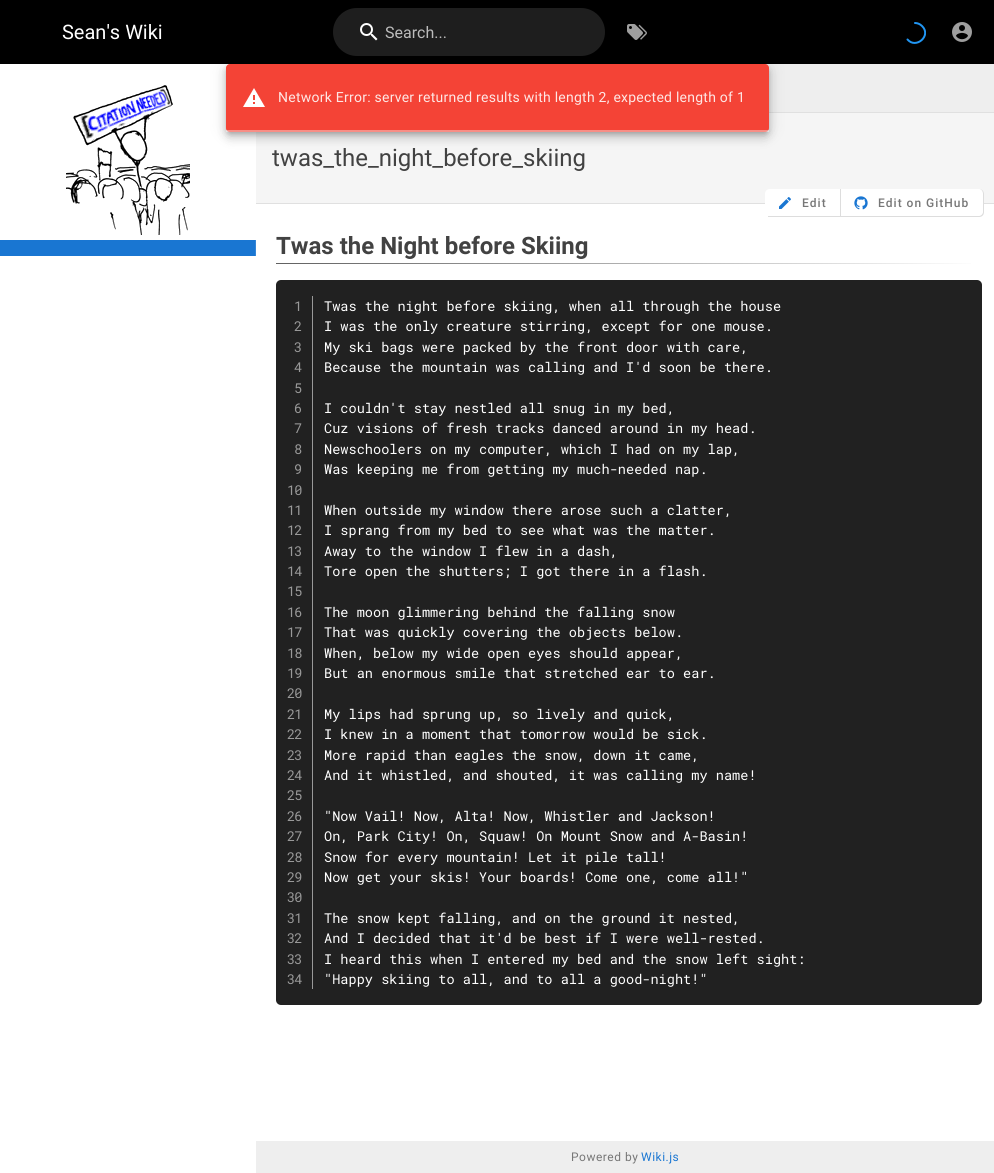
import math
import cairo

surface = cairo.ImageSurface(cairo.FORMAT_RGB24, 994, 1173)
cr = cairo.Context(surface)
options = cairo.FontOptions()
options.set_hint_metrics(cairo.HINT_METRICS_OFF)
options.set_hint_style(cairo.HINT_STYLE_NONE)
cr.set_font_options(options)
cr.set_miter_limit(4)


def rgb(code):
    cr.set_source_rgb(*(v / 255 for v in bytes.fromhex(code[-6:])))


def tracked(x, y, s, letter, word):
    cr.move_to(x, y)
    for ch in s:
        cr.show_text(ch)
        cr.rel_move_to(letter + word * (ch == ' '), 0)


def rrect(x, y, w, h, r):
    cr.new_sub_path()
    for i, (u, v) in enumerate([(x + w - r, y + h - r), (x + r, y + h - r), (x + r, y + r), (x + w - r, y + r)]):
        cr.arc(u, v, r, i * math.pi / 2, (i + 1) * math.pi / 2)
    cr.close_path()


def soft_shadow(x, y, w, h, r, blur, alpha):
    cr.push_group_with_content(cairo.CONTENT_ALPHA)
    cr.set_operator(cairo.OPERATOR_SOURCE)
    for i in range(15, -16, -2):
        e = blur * i / 6
        if min(w, h) + 2 * e > 0:
            cr.set_source_rgba(0, 0, 0, alpha * math.erfc((i - 1) / 8.5) / 2)
            rrect(x - e, y - e, w + 2 * e, h + 2 * e, max(0, min(r + e + blur * .6, min(w, h) / 2 + e)))
            cr.fill()
    cr.mask(cr.pop_group())


def image(path, x, y, w, h):
    cr.save()
    cr.set_source_surface(cairo.ImageSurface.create_from_png(path), x, y)
    cr.rectangle(x, y, w, h)
    cr.fill()
    cr.restore()


rgb("#ffffff")
cr.paint()
rgb("#000000")
cr.rectangle(0, 0, 994, 64)
cr.fill()
rgb("#1e1e1e")
rrect(333, 8, 272, 48, 24)
cr.fill()
image("img/1.png", 360, 23, 18, 18)
image("img/2.png", 627, 24, 20, 16)
cr.save()
cr.rectangle(904, 22, 22, 22)
cr.clip()
cr.new_path()
cr.move_to(915, 23)
cr.curve_to(917.5, 23, 920, 24, 922, 26)
cr.curve_to(932, 35.5, 916, 49.5, 907.5, 39.5)
rgb("#2196f3")
cr.set_line_cap(cairo.LINE_CAP_ROUND)
cr.stroke()
cr.restore()
image("img/3.png", 952, 22, 20, 20)
image("img/4.png", 66, 85, 124, 150)
for x, y, w, h, color in [
    (0, 240, 255, 16, "#1976d2"),
    (255, 240, 1, 16, "#3586d7"),
    (765, 64, 229, 48, "#eeeeee"),
    (769, 112, 225, 1, "#e0e0e0"),
    (256, 113, 738, 90, "#f5f5f5"),
]:
    rgb(color)
    cr.rectangle(x, y, w, h)
    cr.fill()
rgb("#000000")
soft_shadow(226, 65, 543, 68, 4, 9, 0.12)
soft_shadow(226, 70, 543, 68, 4, 5, 0.14)
soft_shadow(227, 68, 541, 66, 3, 2.5, 0.2)
rgb("#f44336")
rrect(226, 64, 543, 68, 4)
cr.fill()
image("img/5.png", 243, 88, 22, 19)
cr.set_source_rgba(1, 1, 1, 0.4)
cr.rectangle(226, 130, 543, 2)
cr.fill()
rgb("#e0e0e0")
cr.rectangle(256, 203, 738, 1)
cr.fill()
rgb("#ffffff")
cr.new_path()
cr.move_to(770, 189)
cr.line_to(841, 189)
cr.line_to(841, 217)
cr.line_to(770, 217)
cr.curve_to(767, 217, 765, 215, 765, 212)
cr.line_to(765, 194)
cr.curve_to(765, 191, 767, 189, 770, 189)
cr.close_path()
cr.fill()
rgb("#dddddd")
cr.rectangle(840, 189, 1, 28)
cr.fill()
cr.rectangle(768, 216, 73, 1)
cr.fill()
image("img/6.png", 779, 197, 12, 12)
rgb("#ffffff")
cr.new_path()
cr.move_to(841, 189)
cr.line_to(979, 189)
cr.curve_to(982, 189, 984, 191, 984, 194)
cr.line_to(984, 212)
cr.curve_to(984, 215, 982, 217, 979, 217)
cr.line_to(841, 217)
cr.close_path()
cr.fill()
rgb("#dddddd")
cr.set_fill_rule(cairo.FILL_RULE_EVEN_ODD)
cr.new_path()
cr.move_to(841, 189)
cr.line_to(979, 189)
cr.curve_to(982, 189, 984, 191, 984, 194)
cr.line_to(984, 212)
cr.curve_to(984, 215, 982, 217, 979, 217)
cr.line_to(841, 217)
cr.close_path()
cr.move_to(841, 189)
cr.line_to(979, 189)
cr.curve_to(981, 189, 983, 191, 983, 194)
cr.line_to(983, 212)
cr.curve_to(983, 214, 981, 216, 979, 216)
cr.line_to(841, 216)
cr.close_path()
cr.fill()
image("img/7.png", 854, 196, 14, 14)
gradient = cairo.LinearGradient(276, 264, 982, 264)
gradient.add_color_stop_rgba(0, 0.38, 0.38, 0.38, 1)
gradient.add_color_stop_rgba(1, 1, 1, 1, 1)
cr.set_source(gradient)
cr.rectangle(276, 263, 695, 1)
cr.fill()
rgb("#212121")
rrect(276, 280, 706, 725, 5)
cr.fill()
rgb("#999999")
cr.rectangle(312, 296, 1, 693)
cr.fill()
rgb("#eeeeee")
cr.rectangle(256, 1141, 738, 32)
cr.fill()
cr.select_font_face("Roboto")
cr.set_font_size(20)
rgb("#ffffff")
cr.move_to(62, 39)
cr.show_text("Sean's Wiki")
cr.set_font_size(16)
rgb("#bcbcbc")
cr.move_to(385, 38)
cr.show_text("Search...")
cr.set_font_size(14)
rgb("#fee7e5")
tracked(278, 102, "Network Error: server returned results with length 2, expected length of 1", 0.25, 0)
cr.set_font_size(24)
rgb("#424242")
cr.move_to(272, 166)
cr.show_text("twas_the_night_before_skiing")
cr.select_font_face("Roboto Medium")
cr.set_font_size(12)
rgb("#777777")
tracked(802, 207, "Edit", 1, 0)
tracked(878, 207, "Edit on GitHub", 1, 0)
cr.select_font_face("Roboto", cairo.FONT_SLANT_NORMAL, cairo.FONT_WEIGHT_BOLD)
cr.set_font_size(24)
rgb("#424242")
cr.move_to(276, 254)
cr.show_text("Twas the Night before Skiing")
cr.select_font_face("Roboto Mono")
cr.set_font_size(13.6)
rgb("#999999")
for x, y, s in [
    (294, 311, "1"),
    (294, 331, "2"),
    (294, 352, "3"),
    (294, 372, "4"),
    (294, 393, "5"),
    (294, 413, "6"),
    (294, 433, "7"),
    (294, 454, "8"),
    (294, 474, "9"),
    (287, 495, "10"),
    (287, 515, "11"),
    (287, 535, "12"),
    (287, 556, "13"),
    (287, 576, "14"),
    (287, 596, "15"),
    (287, 617, "16"),
    (287, 637, "17"),
    (287, 658, "18"),
    (287, 678, "19"),
    (287, 698, "20"),
    (287, 719, "21"),
    (287, 739, "22"),
    (287, 760, "23"),
    (287, 780, "24"),
    (287, 800, "25"),
    (287, 821, "26"),
    (287, 841, "27"),
    (287, 862, "28"),
    (287, 882, "29"),
    (287, 902, "30"),
    (287, 923, "31"),
    (287, 943, "32"),
    (287, 964, "33"),
    (287, 984, "34"),
]:
    tracked(x, y, s, -1, 0)
rgb("#ffffff")
for x, y, s in [
    (324, 311, "Twas the night before skiing, when all through the house"),
    (324, 331, "I was the only creature stirring, except for one mouse."),
    (324, 352, "My ski bags were packed by the front door with care,"),
    (324, 372, "Because the mountain was calling and I'd soon be there."),
    (324, 413, "I couldn't stay nestled all snug in my bed,"),
    (324, 433, "Cuz visions of fresh tracks danced around in my head."),
    (324, 454, "Newschoolers on my computer, which I had on my lap,"),
    (324, 474, "Was keeping me from getting my much-needed nap."),
    (324, 515, "When outside my window there arose such a clatter,"),
    (324, 535, "I sprang from my bed to see what was the matter."),
    (324, 556, "Away to the window I flew in a dash,"),
    (324, 576, "Tore open the shutters; I got there in a flash."),
    (324, 617, "The moon glimmering behind the falling snow"),
    (324, 637, "That was quickly covering the objects below."),
    (324, 658, "When, below my wide open eyes should appear,"),
    (324, 678, "But an enormous smile that stretched ear to ear."),
    (324, 719, "My lips had sprung up, so lively and quick,"),
    (324, 739, "I knew in a moment that tomorrow would be sick."),
    (324, 760, "More rapid than eagles the snow, down it came,"),
    (324, 780, "And it whistled, and shouted, it was calling my name!"),
    (324, 821, "\"Now Vail! Now, Alta! Now, Whistler and Jackson!"),
    (324, 841, "On, Park City! On, Squaw! On Mount Snow and A-Basin!"),
    (324, 862, "Snow for every mountain! Let it pile tall!"),
    (324, 882, "Now get your skis! Your boards! Come one, come all!\""),
    (324, 923, "The snow kept falling, and on the ground it nested,"),
    (324, 943, "And I decided that it'd be best if I were well-rested."),
    (324, 964, "I heard this when I entered my bed and the snow left sight:"),
    (324, 984, "\"Happy skiing to all, and to all a good-night!\""),
]:
    cr.move_to(x, y)
    cr.show_text(s)
cr.select_font_face("Roboto")
cr.set_font_size(12)
rgb("#777777")
tracked(571, 1161, "Powered by", 0.5, 0)
rgb("#1976d2")
tracked(641, 1161, "Wiki.js", 0.5, 0)
surface.write_to_png("page.png")
